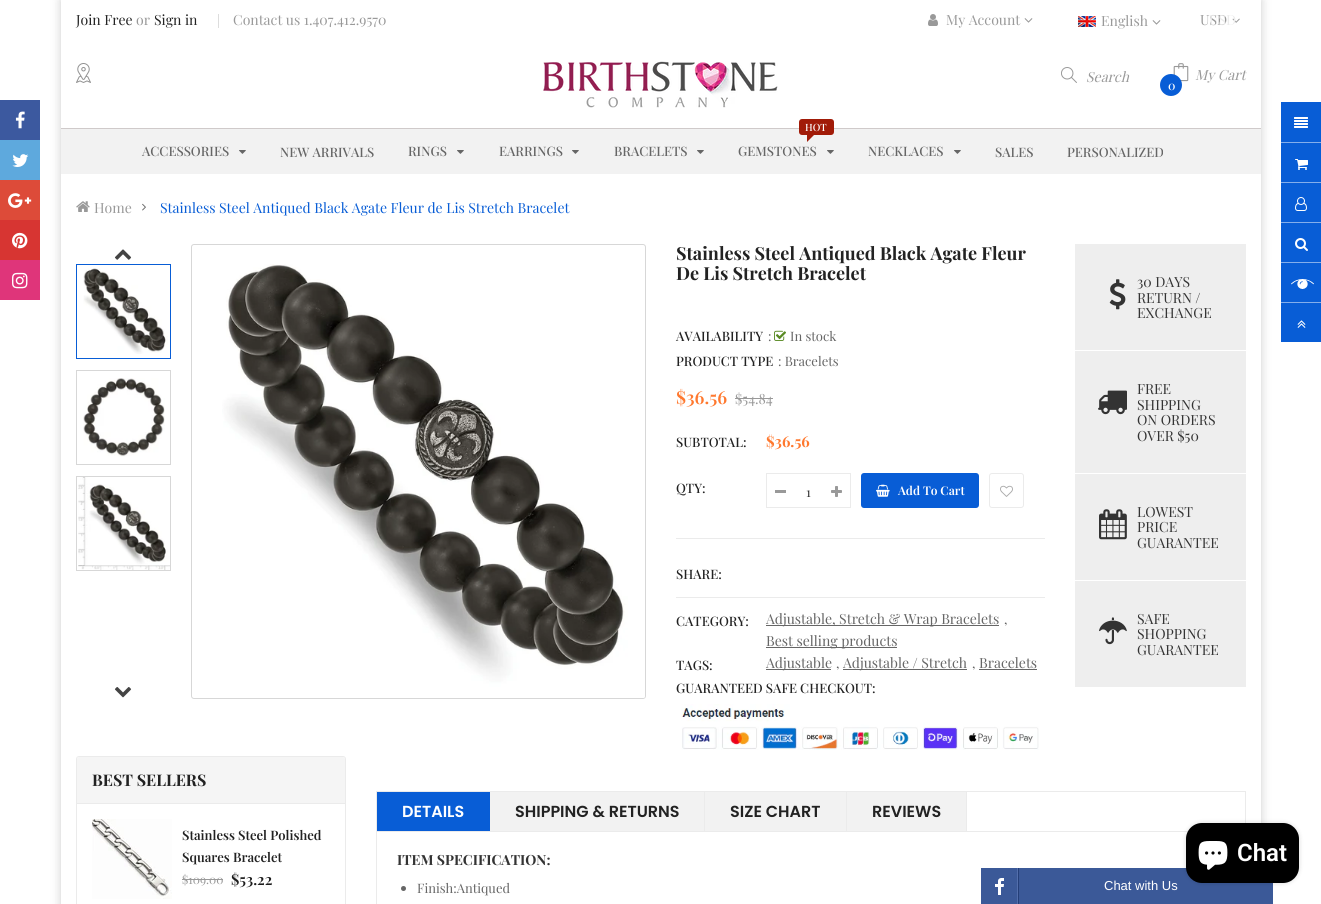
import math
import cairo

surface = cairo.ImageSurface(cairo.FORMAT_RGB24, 1321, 904)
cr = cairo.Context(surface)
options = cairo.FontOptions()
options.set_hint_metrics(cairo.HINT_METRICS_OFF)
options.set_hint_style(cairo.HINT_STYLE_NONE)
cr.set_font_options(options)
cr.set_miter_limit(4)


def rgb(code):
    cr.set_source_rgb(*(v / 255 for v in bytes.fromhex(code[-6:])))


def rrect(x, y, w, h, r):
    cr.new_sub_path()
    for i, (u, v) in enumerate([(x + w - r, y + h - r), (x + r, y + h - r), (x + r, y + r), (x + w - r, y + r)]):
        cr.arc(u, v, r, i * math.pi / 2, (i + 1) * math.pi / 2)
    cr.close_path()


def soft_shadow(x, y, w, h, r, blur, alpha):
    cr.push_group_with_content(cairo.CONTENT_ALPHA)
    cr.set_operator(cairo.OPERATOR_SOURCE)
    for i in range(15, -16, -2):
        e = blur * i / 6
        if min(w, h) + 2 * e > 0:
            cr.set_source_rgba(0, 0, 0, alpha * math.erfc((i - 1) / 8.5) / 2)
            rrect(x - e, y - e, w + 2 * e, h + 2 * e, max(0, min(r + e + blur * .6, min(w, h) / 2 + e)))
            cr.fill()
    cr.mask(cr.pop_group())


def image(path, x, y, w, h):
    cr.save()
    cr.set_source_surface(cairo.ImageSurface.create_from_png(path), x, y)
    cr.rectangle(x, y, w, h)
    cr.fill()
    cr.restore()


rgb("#ffffff")
cr.paint()
cr.save()
cr.set_fill_rule(cairo.FILL_RULE_EVEN_ODD)
cr.new_path()
cr.move_to(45, 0)
cr.line_to(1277, 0)
cr.line_to(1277, 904)
cr.line_to(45, 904)
cr.close_path()
cr.move_to(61, 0)
cr.line_to(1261, 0)
cr.line_to(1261, 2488)
cr.line_to(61, 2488)
cr.close_path()
cr.clip()
rgb("#000000")
soft_shadow(61, 0, 1200, 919, 0, 5, 0.2)
cr.restore()
rgb("#3c599f")
cr.rectangle(0, 100, 40, 40)
cr.fill()
image("img/1.png", 15, 111, 10, 18)
rgb("#5ea9dd")
cr.rectangle(0, 140, 40, 40)
cr.fill()
image("img/2.png", 12, 154, 17, 13)
rgb("#dd4b39")
cr.rectangle(0, 180, 40, 40)
cr.fill()
image("img/3.png", 8, 193, 24, 15)
rgb("#d73532")
cr.rectangle(0, 220, 40, 40)
cr.fill()
image("img/4.png", 12, 232, 16, 17)
rgb("#df357a")
cr.rectangle(0, 260, 40, 40)
cr.fill()
image("img/5.png", 12, 272, 16, 17)
rgb("#dddddd")
cr.rectangle(218, 14, 1, 14)
cr.fill()
image("img/6.png", 928, 14, 10, 12)
image("img/7.png", 1024, 18, 9, 5)
image("img/8.png", 1078, 16, 18, 11)
image("img/7.png", 1152, 20, 9, 5)
image("img/9.png", 1232, 18, 8, 5)
rgb("#cfcaca")
cr.rectangle(61, 128, 1200, 1)
cr.fill()
image("img/10.png", 76, 63, 15, 20)
image("img/11.png", 543, 61, 235, 47)
image("img/12.png", 1061, 67, 16, 16)
image("img/13.png", 1173, 63, 16, 19)
rgb("#085dd6")
cr.arc(1171, 85, 11, 0, 2 * math.pi)
cr.fill()
rgb("#f2f2f2")
cr.rectangle(61, 129, 1200, 45)
cr.fill()
image("img/14.png", 239, 150, 7, 4)
image("img/14.png", 457, 150, 7, 4)
image("img/14.png", 572, 150, 7, 4)
image("img/14.png", 697, 150, 7, 4)
rgb("#a11b08")
rrect(799, 119, 35, 16, 3)
cr.fill()
cr.new_path()
cr.move_to(807, 135)
cr.line_to(814, 135)
cr.line_to(807, 142)
cr.close_path()
cr.fill()
image("img/14.png", 827, 150, 7, 4)
image("img/14.png", 954, 150, 7, 4)
image("img/15.png", 76, 201, 14, 11)
image("img/16.png", 142, 203, 4, 8)
image("img/17.png", 114, 249, 18, 11)
cr.rectangle(76.5, 264.5, 94, 94)
rgb("#085dd6")
cr.set_line_width(1)
cr.stroke()
image("img/18.png", 83, 268, 85, 86)
cr.rectangle(76.5, 370.5, 94, 94)
rgb("#d7d7d7")
cr.stroke()
image("img/19.png", 83, 378, 82, 79)
cr.rectangle(76.5, 476.5, 94, 94)
cr.stroke()
image("img/20.png", 78, 477, 92, 93)
image("img/21.png", 114, 687, 18, 11)
rrect(191.5, 244.5, 454, 454, 2.5)
cr.stroke()
image("img/22.png", 222, 264, 423, 434)
image("img/23.png", 774, 330, 12, 11)
rgb("#999999")
cr.rectangle(735, 398, 38, 1)
cr.fill()
cr.rectangle(766.5, 473.5, 84, 34)
rgb("#ebebeb")
cr.stroke()
rgb("#999999")
cr.rectangle(775, 490, 11, 3)
cr.fill()
image("img/24.png", 831, 486, 11, 11)
rgb("#085dd6")
rrect(861, 473, 118, 35, 3)
cr.fill()
image("img/25.png", 876, 484, 14, 13)
rrect(989.5, 473.5, 34, 34, 2.5)
rgb("#ebebeb")
cr.stroke()
image("img/26.png", 1000, 485, 13, 12)
for x, y, w, h, color in [
    (676, 538, 369, 1, "#ebebeb"),
    (676, 597, 369, 1, "#ebebeb"),
    (766, 625, 233, 1, "#666666"),
    (766, 647, 131, 1, "#666666"),
    (766, 669, 65, 1, "#666666"),
    (843, 669, 124, 1, "#666666"),
    (979, 669, 58, 1, "#666666"),
]:
    rgb(color)
    cr.rectangle(x, y, w, h)
    cr.fill()
image("img/27.png", 681, 704, 358, 46)
rgb("#eeeeee")
cr.rectangle(1075, 244, 171, 443)
cr.fill()
rgb("#ffffff")
cr.rectangle(1075, 350, 171, 1)
cr.fill()
image("img/28.png", 1109, 279, 17, 31)
cr.rectangle(1075, 473, 171, 1)
cr.fill()
image("img/29.png", 1098, 390, 29, 25)
cr.rectangle(1075, 580, 171, 1)
cr.fill()
image("img/30.png", 1099, 509, 28, 31)
image("img/31.png", 1099, 617, 28, 28)
rrect(76.5, 756.5, 269, 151, 2.5)
rgb("#ebebeb")
cr.stroke()
rgb("#f5f5f5")
cr.new_path()
cr.move_to(79, 757)
cr.line_to(343, 757)
cr.curve_to(344, 757, 345, 758, 345, 759)
cr.line_to(345, 804)
cr.line_to(77, 804)
cr.line_to(77, 759)
cr.curve_to(77, 758, 78, 757, 79, 757)
cr.close_path()
cr.fill()
rgb("#ebebeb")
cr.rectangle(77, 803, 268, 1)
cr.fill()
image("img/32.png", 92, 819, 80, 80)
rgb("#999999")
cr.rectangle(182, 879, 41, 1)
cr.fill()
cr.rectangle(376.5, 791.5, 869, 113)
rgb("#ebebeb")
cr.stroke()
for x, y, w, h, color in [
    (377, 831, 812, 1, "#ebebeb"),
    (377, 792, 113, 39, "#085dd6"),
    (490, 792, 214, 39, "#f2f2f2"),
    (704, 792, 1, 39, "#ebebeb"),
    (705, 792, 141, 39, "#f2f2f2"),
    (846, 792, 1, 39, "#ebebeb"),
    (847, 792, 119, 39, "#f2f2f2"),
    (966, 792, 1, 39, "#ebebeb"),
]:
    rgb(color)
    cr.rectangle(x, y, w, h)
    cr.fill()
rgb("#666666")
cr.arc(403.5, 888.5, 2.5, 0, 2 * math.pi)
cr.fill()
rgb("#085dd6")
cr.rectangle(1281, 102, 40, 40)
cr.fill()
image("img/33.png", 1294, 117, 14, 11)
cr.rectangle(1281, 143, 40, 39)
cr.fill()
rgb("#84aeeb")
cr.rectangle(1281, 142, 40, 1)
cr.fill()
image("img/34.png", 1295, 159, 13, 11)
rgb("#085dd6")
cr.rectangle(1281, 183, 40, 39)
cr.fill()
rgb("#84aeeb")
cr.rectangle(1281, 182, 40, 1)
cr.fill()
image("img/35.png", 1295, 197, 12, 14)
rgb("#085dd6")
cr.rectangle(1281, 223, 40, 39)
cr.fill()
rgb("#84aeeb")
cr.rectangle(1281, 222, 40, 1)
cr.fill()
image("img/36.png", 1295, 238, 13, 13)
rgb("#085dd6")
cr.rectangle(1281, 263, 40, 39)
cr.fill()
rgb("#84aeeb")
cr.rectangle(1281, 262, 40, 1)
cr.fill()
image("img/37.png", 1291, 279, 23, 10)
rgb("#085dd6")
cr.rectangle(1281, 303, 40, 39)
cr.fill()
rgb("#84aeeb")
cr.rectangle(1281, 302, 40, 1)
cr.fill()
image("img/38.png", 1297, 320, 9, 8)
rgb("#3b5998")
cr.rectangle(981, 868, 292, 36)
cr.fill()
image("img/39.png", 995, 868, 24, 36)
rgb("#000000")
soft_shadow(1186, 823, 113, 60, 16, 2.5, 0.15)
rgb("#000000")
rrect(1186, 823, 113, 60, 16)
cr.fill()
image("img/40.png", 1198, 841, 30, 29)
cr.select_font_face("Playfair Display")
cr.set_font_size(14)
rgb("#222222")
cr.move_to(76, 25)
cr.show_text("Join Free")
rgb("#999999")
cr.move_to(136, 25)
cr.show_text("or")
rgb("#222222")
cr.move_to(154, 25)
cr.show_text("Sign in")
rgb("#999999")
for x, y, s in [
    (233, 25, "Contact us 1.407.412.9570"),
    (946, 25, "My Account"),
    (1101, 26, "English"),
    (1200, 25, "USD"),
]:
    cr.move_to(x, y)
    cr.show_text(s)
rgb("#ececec")
cr.move_to(1209, 25)
cr.show_text("USD")
cr.select_font_face("Playfair Display", cairo.FONT_SLANT_ITALIC)
rgb("#999999")
cr.move_to(1086, 82)
cr.show_text("Search")
cr.move_to(1195, 80)
cr.show_text("My Cart")
cr.select_font_face("Playfair Display Medium")
cr.set_font_size(12)
rgb("#ffffff")
cr.move_to(1168, 90)
cr.show_text("0")
cr.set_font_size(13)
rgb("#666666")
for x, y, s in [
    (142, 156, "ACCESSORIES"),
    (280, 157, "NEW ARRIVALS"),
    (408, 156, "RINGS"),
    (499, 156, "EARRINGS"),
    (614, 156, "BRACELETS"),
]:
    cr.move_to(x, y)
    cr.show_text(s)
cr.set_font_size(10)
rgb("#ffffff")
cr.move_to(805, 131)
cr.show_text("HOT")
cr.set_font_size(13)
rgb("#666666")
for x, y, s in [
    (738, 156, "GEMSTONES"),
    (868, 156, "NECKLACES"),
    (995, 157, "SALES"),
    (1067, 157, "PERSONALIZED"),
]:
    cr.move_to(x, y)
    cr.show_text(s)
cr.select_font_face("Playfair Display")
cr.set_font_size(14)
rgb("#999999")
cr.move_to(94, 213)
cr.show_text("Home")
rgb("#085dd6")
cr.move_to(160, 213)
cr.show_text("Stainless Steel Antiqued Black Agate Fleur de Lis Stretch Bracelet")
cr.select_font_face("Playfair Display", cairo.FONT_SLANT_NORMAL, cairo.FONT_WEIGHT_BOLD)
cr.set_font_size(18)
rgb("#222222")
cr.move_to(676, 260)
cr.show_text("Stainless Steel Antiqued Black Agate Fleur")
cr.move_to(676, 280)
cr.show_text("De Lis Stretch Bracelet")
cr.select_font_face("Playfair Display Medium")
cr.set_font_size(13)
cr.move_to(676, 341)
cr.show_text("AVAILABILITY")
cr.select_font_face("Playfair Display")
rgb("#666666")
cr.move_to(768, 341)
cr.show_text(":")
cr.move_to(790, 341)
cr.show_text("In stock")
cr.select_font_face("Playfair Display Medium")
rgb("#222222")
cr.move_to(676, 366)
cr.show_text("PRODUCT TYPE")
cr.select_font_face("Playfair Display")
rgb("#666666")
cr.move_to(778, 366)
cr.show_text(": Bracelets")
cr.select_font_face("Playfair Display SemiBold")
cr.set_font_size(18)
rgb("#ff782e")
cr.move_to(676, 404)
cr.show_text("$36.56")
cr.select_font_face("Playfair Display")
cr.set_font_size(14)
rgb("#999999")
cr.move_to(735, 404)
cr.show_text("$54.84")
cr.select_font_face("Playfair Display Medium")
cr.set_font_size(13)
rgb("#222222")
cr.move_to(676, 447)
cr.show_text("SUBTOTAL:")
cr.select_font_face("Playfair Display", cairo.FONT_SLANT_NORMAL, cairo.FONT_WEIGHT_BOLD)
cr.set_font_size(15)
rgb("#ff782e")
cr.move_to(766, 447)
cr.show_text("$36.56")
cr.select_font_face("Playfair Display Medium")
cr.set_font_size(13)
rgb("#222222")
cr.move_to(676, 493)
cr.show_text("QTY:")
cr.select_font_face("Playfair Display")
rgb("#333333")
cr.move_to(806, 497)
cr.show_text("1")
cr.select_font_face("Playfair Display SemiBold")
cr.set_font_size(12)
rgb("#ffffff")
cr.move_to(898, 495)
cr.show_text("Add To Cart")
cr.select_font_face("Playfair Display Medium")
cr.set_font_size(13)
rgb("#222222")
cr.move_to(676, 579)
cr.show_text("SHARE:")
cr.move_to(676, 626)
cr.show_text("CATEGORY:")
cr.select_font_face("Playfair Display")
cr.set_font_size(14)
rgb("#666666")
cr.move_to(766, 624)
cr.show_text("Adjustable, Stretch & Wrap Bracelets")
cr.set_font_size(13)
cr.move_to(1004, 624)
cr.show_text(",")
cr.set_font_size(14)
cr.move_to(766, 646)
cr.show_text("Best selling products")
cr.select_font_face("Playfair Display Medium")
cr.set_font_size(13)
rgb("#222222")
cr.move_to(676, 670)
cr.show_text("TAGS:")
cr.select_font_face("Playfair Display")
cr.set_font_size(14)
rgb("#666666")
cr.move_to(766, 668)
cr.show_text("Adjustable")
cr.set_font_size(13)
cr.move_to(836, 668)
cr.show_text(",")
cr.set_font_size(14)
cr.move_to(843, 668)
cr.show_text("Adjustable / Stretch")
cr.set_font_size(13)
cr.move_to(972, 668)
cr.show_text(",")
cr.set_font_size(14)
cr.move_to(979, 668)
cr.show_text("Bracelets")
cr.select_font_face("Playfair Display Medium")
cr.set_font_size(13)
rgb("#222222")
cr.move_to(676, 693)
cr.show_text("GUARANTEED SAFE CHECKOUT:")
cr.select_font_face("Playfair Display")
cr.set_font_size(14)
rgb("#333333")
for x, y, s in [
    (1137, 287, "30 DAYS"),
    (1137, 303, "RETURN /"),
    (1137, 318, "EXCHANGE"),
    (1137, 394, "FREE"),
    (1137, 410, "SHIPPING"),
    (1137, 425, "ON ORDERS"),
    (1137, 441, "OVER $50"),
    (1137, 517, "LOWEST"),
    (1137, 532, "PRICE"),
    (1137, 548, "GUARANTEE"),
    (1137, 624, "SAFE"),
    (1137, 639, "SHOPPING"),
    (1137, 655, "GUARANTEE"),
]:
    cr.move_to(x, y)
    cr.show_text(s)
cr.select_font_face("Playfair Display", cairo.FONT_SLANT_NORMAL, cairo.FONT_WEIGHT_BOLD)
cr.set_font_size(16)
rgb("#222222")
cr.move_to(92, 786)
cr.show_text("BEST SELLERS")
cr.select_font_face("Playfair Display SemiBold")
cr.set_font_size(13)
cr.move_to(182, 840)
cr.show_text("Stainless Steel Polished")
cr.move_to(182, 862)
cr.show_text("Squares Bracelet")
cr.select_font_face("Playfair Display")
cr.set_font_size(12)
rgb("#999999")
cr.move_to(182, 884)
cr.show_text("$109.00")
cr.select_font_face("Playfair Display SemiBold")
cr.set_font_size(15)
rgb("#1c1c1c")
cr.move_to(231, 885)
cr.show_text("$53.22")
cr.select_font_face("Poppins SemiBold")
cr.set_font_size(16)
rgb("#ffffff")
cr.move_to(402, 817)
cr.show_text("DETAILS")
rgb("#222222")
for x, y, s in [
    (515, 817, "SHIPPING & RETURNS"),
    (730, 817, "SIZE CHART"),
    (872, 817, "REVIEWS"),
]:
    cr.move_to(x, y)
    cr.show_text(s)
cr.select_font_face("Playfair Display", cairo.FONT_SLANT_NORMAL, cairo.FONT_WEIGHT_BOLD)
cr.set_font_size(14)
rgb("#333333")
cr.move_to(397, 865)
cr.show_text("ITEM SPECIFICATION:")
cr.select_font_face("Playfair Display")
cr.set_font_size(13)
rgb("#666666")
cr.move_to(417, 893)
cr.show_text("Finish:Antiqued")
cr.select_font_face("Liberation Sans")
rgb("#ffffff")
cr.move_to(1104, 890)
cr.show_text("Chat with Us")
cr.select_font_face("Roboto SemiBold")
cr.set_font_size(24)
cr.move_to(1237, 861)
cr.show_text("Chat")
surface.write_to_png("page.png")
